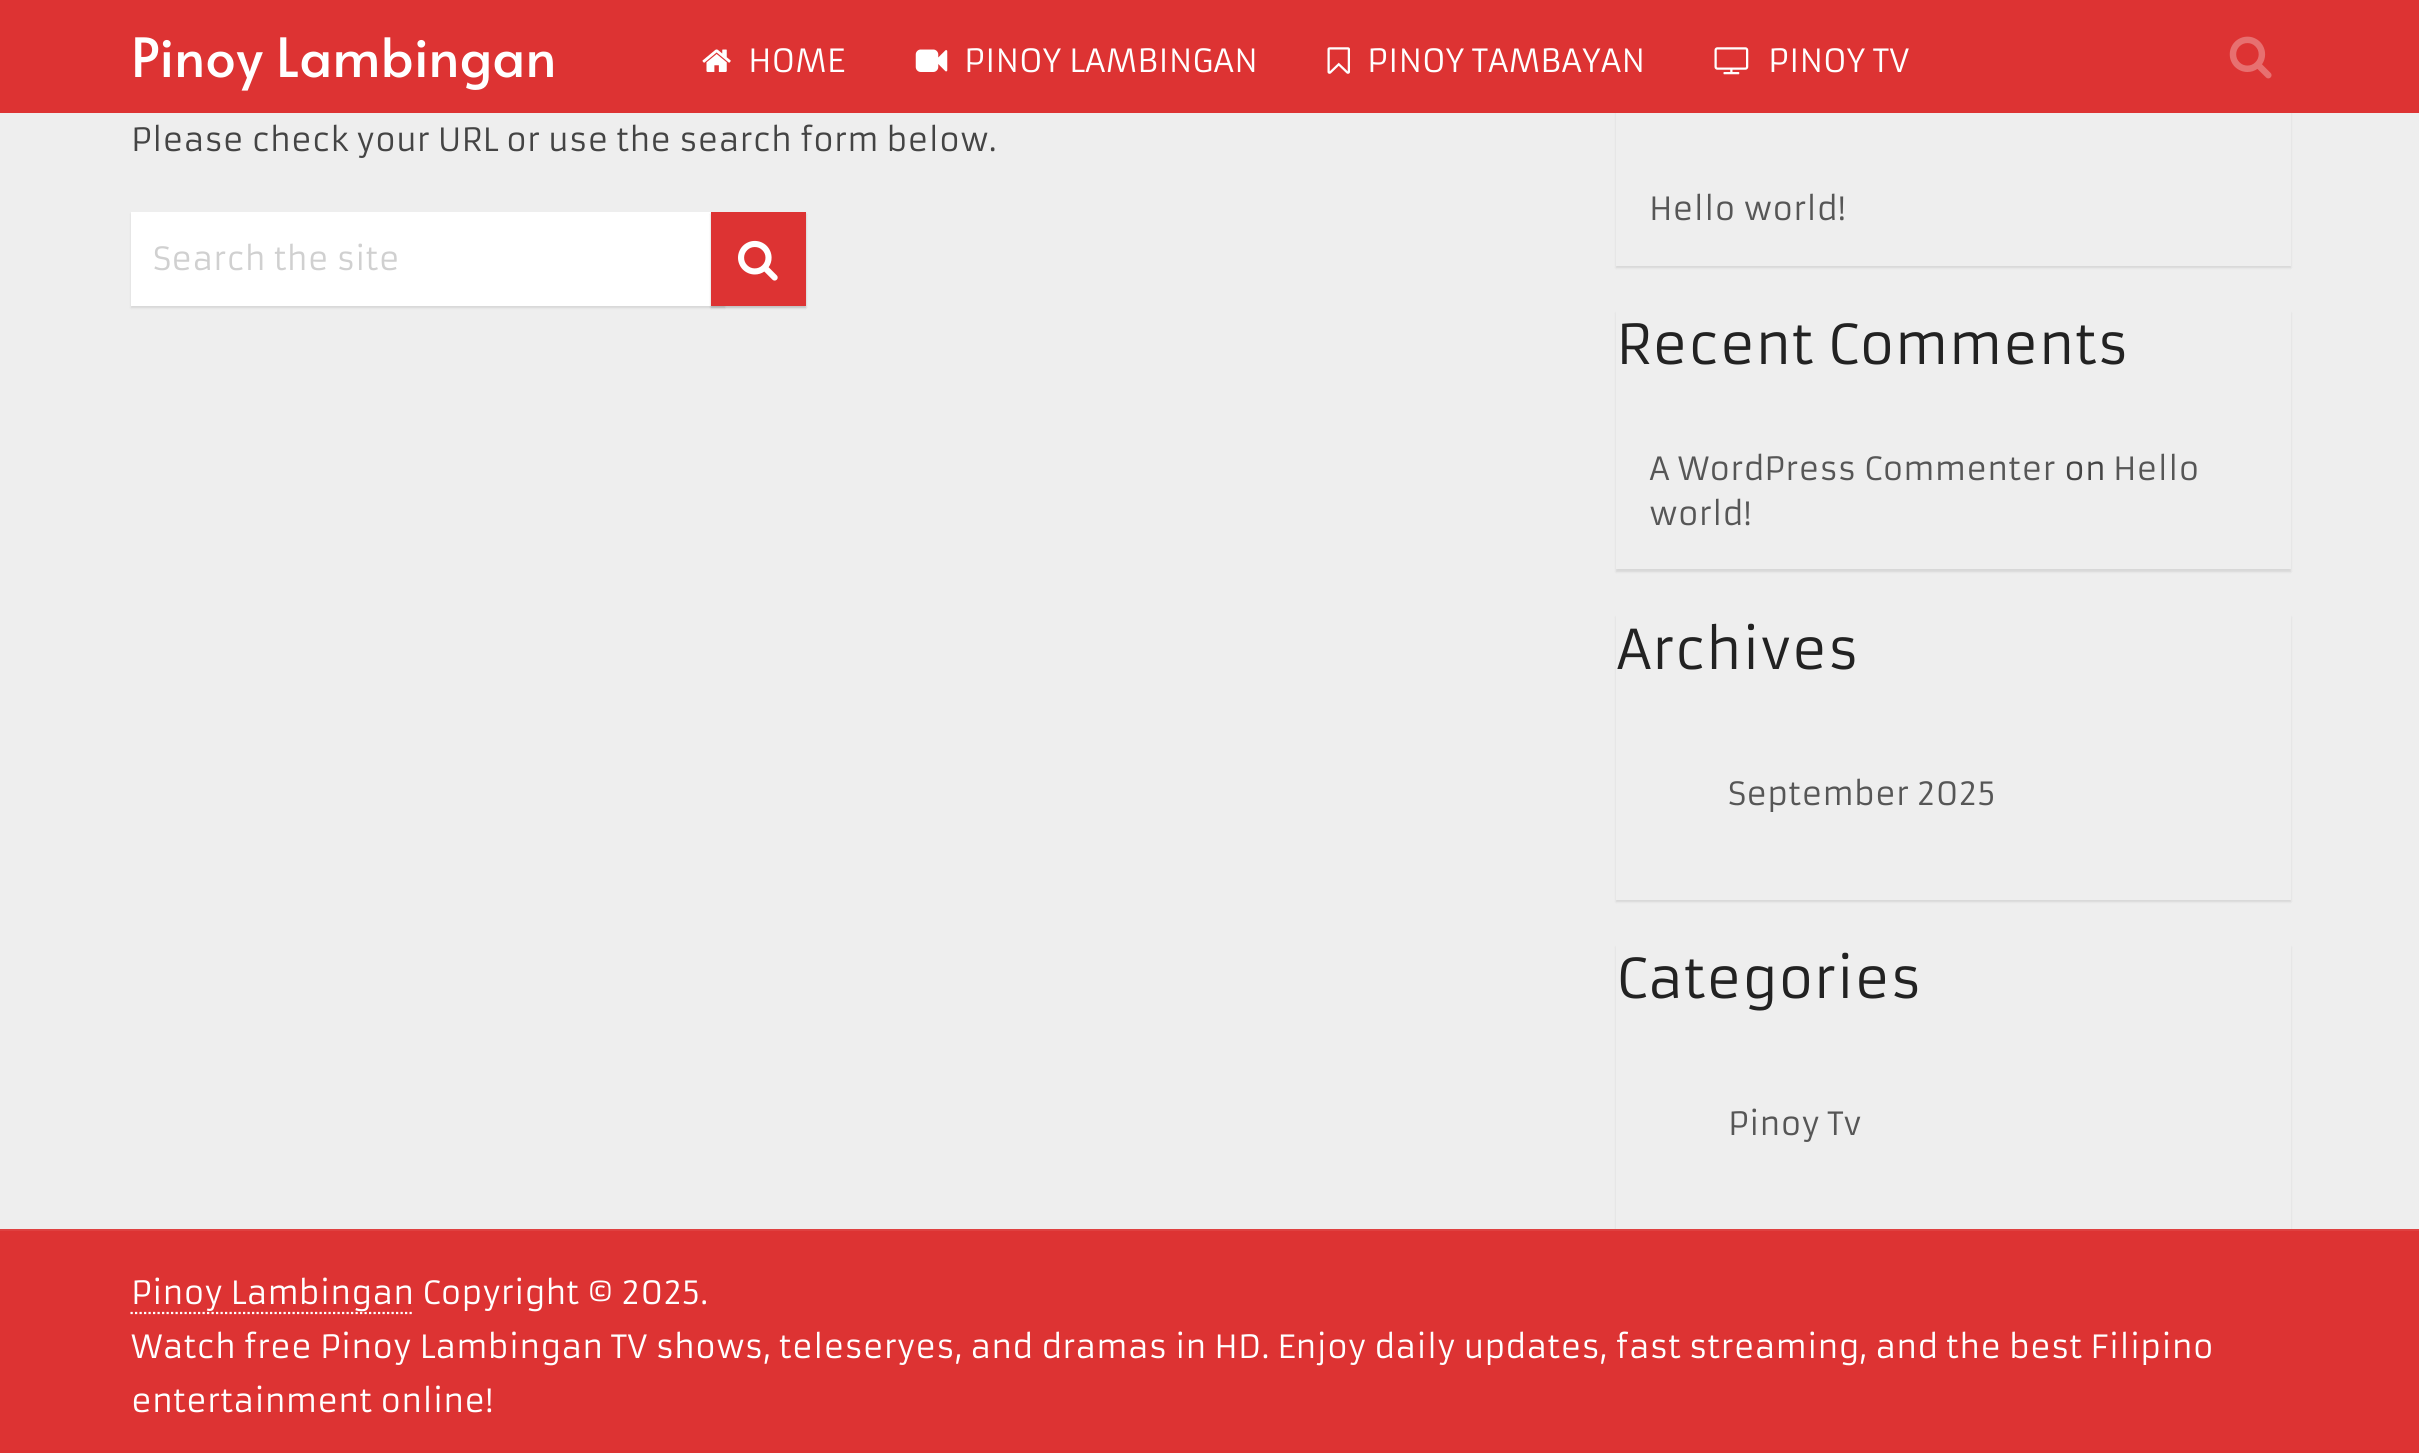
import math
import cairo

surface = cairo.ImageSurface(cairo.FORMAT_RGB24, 2419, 1453)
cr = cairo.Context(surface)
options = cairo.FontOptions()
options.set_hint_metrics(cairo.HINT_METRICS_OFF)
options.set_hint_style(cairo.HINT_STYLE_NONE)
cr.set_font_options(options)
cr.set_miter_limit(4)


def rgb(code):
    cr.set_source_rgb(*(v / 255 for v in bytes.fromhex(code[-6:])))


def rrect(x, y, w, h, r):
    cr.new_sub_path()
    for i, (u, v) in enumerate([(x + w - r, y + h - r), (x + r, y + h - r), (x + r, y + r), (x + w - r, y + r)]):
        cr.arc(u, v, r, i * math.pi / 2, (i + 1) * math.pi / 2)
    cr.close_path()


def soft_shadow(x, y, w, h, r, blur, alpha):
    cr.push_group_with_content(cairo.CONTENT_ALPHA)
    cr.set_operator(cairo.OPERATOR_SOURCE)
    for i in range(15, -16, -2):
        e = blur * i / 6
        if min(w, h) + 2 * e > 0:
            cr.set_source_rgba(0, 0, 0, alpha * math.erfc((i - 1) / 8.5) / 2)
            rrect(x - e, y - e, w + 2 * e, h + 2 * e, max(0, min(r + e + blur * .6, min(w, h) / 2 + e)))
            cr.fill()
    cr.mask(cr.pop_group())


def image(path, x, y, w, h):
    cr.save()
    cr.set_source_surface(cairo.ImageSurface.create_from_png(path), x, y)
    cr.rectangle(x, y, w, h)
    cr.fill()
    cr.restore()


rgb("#eeeeee")
cr.paint()
cr.save()
cr.set_fill_rule(cairo.FILL_RULE_EVEN_ODD)
cr.new_path()
cr.move_to(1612, 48)
cr.line_to(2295, 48)
cr.line_to(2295, 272)
cr.line_to(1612, 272)
cr.close_path()
cr.move_to(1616, 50)
cr.line_to(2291, 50)
cr.line_to(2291, 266)
cr.line_to(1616, 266)
cr.close_path()
cr.clip()
rgb("#000000")
soft_shadow(1616, 52, 675, 216, 0, 1, 0.1)
cr.restore()
rgb("#dd3333")
cr.rectangle(0, 0, 2419, 113)
cr.fill()
image("img/1.png", 702, 49, 29, 23)
image("img/2.png", 915, 49, 33, 23)
image("img/3.png", 1327, 47, 23, 27)
image("img/4.png", 1714, 47, 35, 28)
image("img/5.png", 2229, 36, 43, 43)
rgb("#000000")
soft_shadow(131, 214, 594, 94, 0, 1, 0.1)
rgb("#ffffff")
cr.rectangle(131, 212, 580, 94)
cr.fill()
rgb("#000000")
soft_shadow(711, 214, 95, 94, 0, 1, 0.1)
rgb("#dd3333")
cr.rectangle(711, 212, 95, 94)
cr.fill()
image("img/6.png", 738, 240, 40, 41)
cr.save()
cr.set_fill_rule(cairo.FILL_RULE_EVEN_ODD)
cr.new_path()
cr.move_to(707, 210)
cr.line_to(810, 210)
cr.line_to(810, 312)
cr.line_to(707, 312)
cr.close_path()
cr.move_to(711, 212)
cr.line_to(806, 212)
cr.line_to(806, 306)
cr.line_to(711, 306)
cr.close_path()
cr.clip()
rgb("#000000")
soft_shadow(711, 214, 95, 94, 0, 1, 0.1)
cr.restore()
cr.save()
cr.set_fill_rule(cairo.FILL_RULE_EVEN_ODD)
cr.new_path()
cr.move_to(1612, 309)
cr.line_to(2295, 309)
cr.line_to(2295, 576)
cr.line_to(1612, 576)
cr.close_path()
cr.move_to(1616, 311)
cr.line_to(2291, 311)
cr.line_to(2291, 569)
cr.line_to(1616, 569)
cr.close_path()
cr.clip()
rgb("#000000")
soft_shadow(1616, 313, 675, 259, 0, 1, 0.1)
cr.restore()
cr.save()
cr.set_fill_rule(cairo.FILL_RULE_EVEN_ODD)
cr.new_path()
cr.move_to(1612, 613)
cr.line_to(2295, 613)
cr.line_to(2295, 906)
cr.line_to(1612, 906)
cr.close_path()
cr.move_to(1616, 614)
cr.line_to(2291, 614)
cr.line_to(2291, 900)
cr.line_to(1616, 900)
cr.close_path()
cr.clip()
rgb("#000000")
soft_shadow(1616, 617, 675, 285, 0, 1, 0.1)
cr.restore()
cr.save()
cr.set_fill_rule(cairo.FILL_RULE_EVEN_ODD)
cr.new_path()
cr.move_to(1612, 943)
cr.line_to(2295, 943)
cr.line_to(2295, 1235)
cr.line_to(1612, 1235)
cr.close_path()
cr.move_to(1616, 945)
cr.line_to(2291, 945)
cr.line_to(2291, 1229)
cr.line_to(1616, 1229)
cr.close_path()
cr.clip()
rgb("#000000")
soft_shadow(1616, 947, 675, 284, 0, 1, 0.1)
cr.restore()
cr.rectangle(0, 1231, 2419, 222)
cr.fill()
rgb("#df4141")
cr.rectangle(0, 1229, 2419, 2)
cr.fill()
cr.new_path()
cr.move_to(130.5, 1313)
cr.line_to(414, 1313)
rgb("#ffffff")
cr.set_line_width(2.2)
cr.set_dash([2.25, 2.25])
cr.stroke()
cr.select_font_face("Alata")
cr.set_font_size(54)
cr.move_to(131, 77)
cr.show_text("Pinoy Lambingan")
cr.select_font_face("Armata")
cr.set_font_size(31.5)
for x, y, s in [
    (748, 72, "HOME"),
    (964, 72, "PINOY LAMBINGAN"),
    (1367, 72, "PINOY TAMBAYAN"),
    (1768, 72, "PINOY TV"),
]:
    cr.move_to(x, y)
    cr.show_text(s)
rgb("#444444")
cr.move_to(131, 151)
cr.show_text("Please check your URL or use the search form below.")
rgb("#d0d0d0")
cr.move_to(153, 270)
cr.show_text("Search the site")
rgb("#565656")
cr.move_to(1649, 220)
cr.show_text("Hello world!")
cr.set_font_size(54)
rgb("#222222")
cr.move_to(1616, 364)
cr.show_text("Recent Comments")
cr.set_font_size(31.5)
rgb("#565656")
cr.move_to(1649, 480)
cr.show_text("A WordPress Commenter")
rgb("#444444")
cr.move_to(2064, 480)
cr.show_text("on")
rgb("#565656")
cr.move_to(2113, 480)
cr.show_text("Hello")
cr.move_to(1649, 525)
cr.show_text("world!")
cr.set_font_size(54)
rgb("#222222")
cr.move_to(1616, 669)
cr.show_text("Archives")
cr.set_font_size(31.5)
rgb("#565656")
cr.move_to(1728, 805)
cr.show_text("September 2025")
cr.set_font_size(54)
rgb("#222222")
cr.move_to(1616, 998)
cr.show_text("Categories")
cr.set_font_size(31.5)
rgb("#565656")
cr.move_to(1728, 1135)
cr.show_text("Pinoy Tv")
rgb("#ffffff")
for x, y, s in [
    (131, 1304, "Pinoy Lambingan Copyright © 2025."),
    (131, 1358, "Watch free Pinoy Lambingan TV shows, teleseryes, and dramas in HD. Enjoy daily updates, fast streaming, and the best Filipino"),
    (131, 1412, "entertainment online!"),
]:
    cr.move_to(x, y)
    cr.show_text(s)
surface.write_to_png("page.png")
